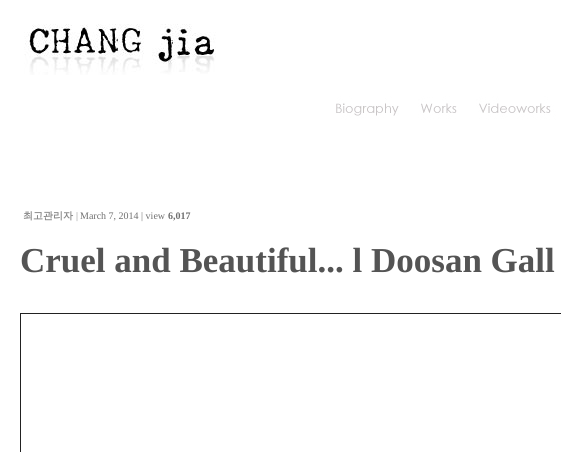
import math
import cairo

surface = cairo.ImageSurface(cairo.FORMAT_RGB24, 561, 452)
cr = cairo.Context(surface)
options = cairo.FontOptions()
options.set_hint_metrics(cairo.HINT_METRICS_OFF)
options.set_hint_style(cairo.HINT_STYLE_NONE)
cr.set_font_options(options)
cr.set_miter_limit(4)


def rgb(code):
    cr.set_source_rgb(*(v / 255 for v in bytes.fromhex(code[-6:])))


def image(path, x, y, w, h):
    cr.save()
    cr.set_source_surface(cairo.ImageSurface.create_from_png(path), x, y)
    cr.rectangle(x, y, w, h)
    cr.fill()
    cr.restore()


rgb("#ffffff")
cr.paint()
image("img/1.png", 24, 24, 192, 51)
image("img/2.png", 312, 96, 98, 26)
image("img/3.png", 410, 96, 58, 26)
image("img/4.png", 468, 96, 93, 26)
cr.rectangle(20.5, 313.5, 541, 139)
rgb("#222222")
cr.set_line_width(1)
cr.stroke()
cr.select_font_face("WenQuanYi Zen Hei", cairo.FONT_SLANT_NORMAL, cairo.FONT_WEIGHT_BOLD)
cr.set_font_size(10)
rgb("#888888")
cr.move_to(23, 219)
cr.show_text("최고관리자")
cr.select_font_face("Liberation Serif")
rgb("#909090")
cr.move_to(76, 219)
cr.show_text("|")
rgb("#707070")
cr.move_to(80, 219)
cr.show_text("March 7, 2014 | view")
cr.select_font_face("Liberation Serif", cairo.FONT_SLANT_NORMAL, cairo.FONT_WEIGHT_BOLD)
cr.move_to(168, 219)
cr.show_text("6,017")
cr.set_font_size(35)
rgb("#545454")
cr.move_to(20, 272)
cr.show_text("Cruel and Beautiful... l Doosan Gall")
surface.write_to_png("page.png")
